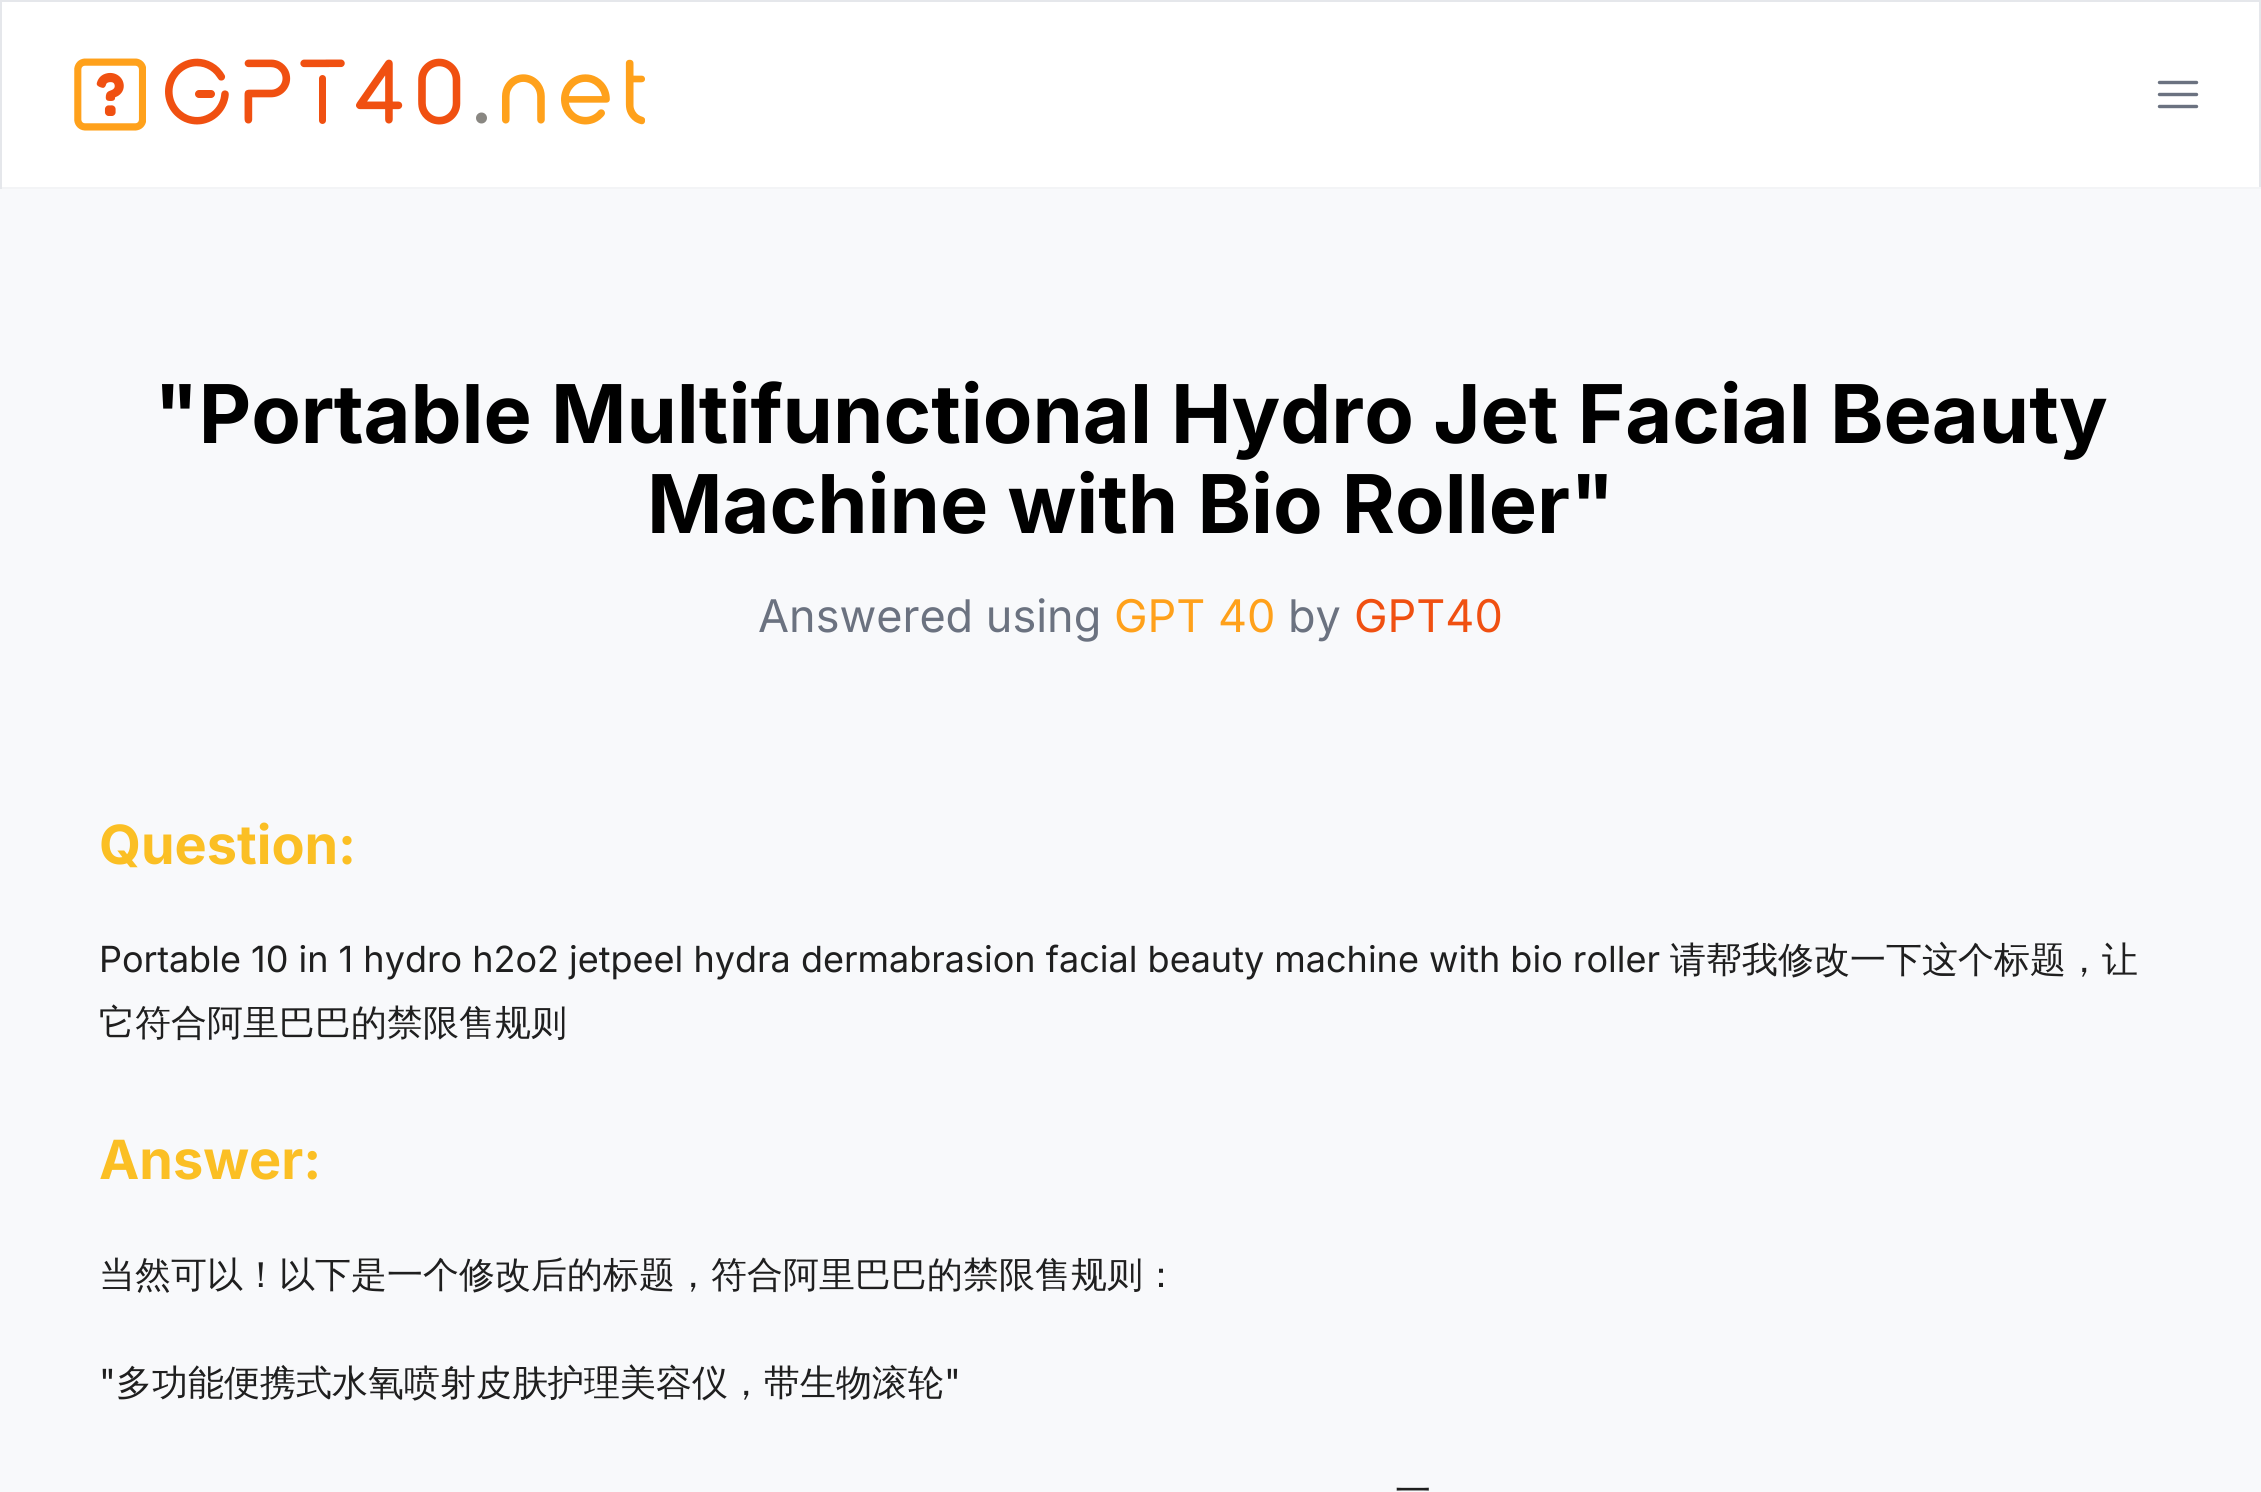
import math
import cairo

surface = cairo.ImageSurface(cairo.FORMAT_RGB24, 2261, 1492)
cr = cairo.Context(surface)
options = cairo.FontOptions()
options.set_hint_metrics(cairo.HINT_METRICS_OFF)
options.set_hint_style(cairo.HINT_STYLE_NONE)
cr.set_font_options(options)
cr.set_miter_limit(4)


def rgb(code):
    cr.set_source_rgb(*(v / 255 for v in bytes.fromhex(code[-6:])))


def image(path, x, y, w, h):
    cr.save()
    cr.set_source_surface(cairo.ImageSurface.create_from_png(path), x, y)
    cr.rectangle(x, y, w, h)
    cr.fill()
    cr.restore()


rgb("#f8f9fb")
cr.paint()
for x, y, w, h, color in [
    (2, 2, 2257, 185, "#ffffff"),
    (0, 0, 2261, 2, "#e5e7eb"),
    (2259, 0, 2, 189, "#e5e7eb"),
    (0, 187, 2261, 2, "#f3f4f6"),
    (0, 0, 2, 189, "#e5e7eb"),
]:
    rgb(color)
    cr.rectangle(x, y, w, h)
    cr.fill()
image("img/1.png", 74, 58, 72, 73)
image("img/2.png", 165, 58, 481, 67)
cr.new_path()
cr.move_to(2159.5, 82.5)
cr.line_to(2196.5, 82.5)
cr.move_to(2159.5, 94.5)
cr.line_to(2196.5, 94.5)
cr.move_to(2159.5, 106.5)
cr.line_to(2196.5, 106.5)
rgb("#6b7280")
cr.set_line_width(3.4)
cr.set_line_cap(cairo.LINE_CAP_ROUND)
cr.set_line_join(cairo.LINE_JOIN_ROUND)
cr.stroke()
cr.select_font_face("Inter", cairo.FONT_SLANT_NORMAL, cairo.FONT_WEIGHT_BOLD)
cr.set_font_size(81)
rgb("#000000")
cr.move_to(154, 443)
cr.show_text("\"Portable Multifunctional Hydro Jet Facial Beauty")
cr.move_to(647, 533)
cr.show_text("Machine with Bio Roller\"")
cr.select_font_face("Inter")
cr.set_font_size(45)
rgb("#6b7280")
cr.move_to(758, 632)
cr.show_text("Answered using")
rgb("#ffa11b")
cr.move_to(1114, 632)
cr.show_text("GPT 40")
rgb("#6b7280")
cr.move_to(1288, 632)
cr.show_text("by")
rgb("#f05011")
cr.move_to(1354, 632)
cr.show_text("GPT40")
cr.select_font_face("Inter", cairo.FONT_SLANT_NORMAL, cairo.FONT_WEIGHT_BOLD)
cr.set_font_size(54)
rgb("#fbbf24")
cr.move_to(99, 864)
cr.show_text("Question:")
cr.select_font_face("Inter")
cr.set_font_size(36)
rgb("#1f1f1f")
cr.move_to(99, 972)
cr.show_text("Portable 10 in 1 hydro h2o2 jetpeel hydra dermabrasion facial beauty machine with bio roller")
cr.select_font_face("WenQuanYi Zen Hei Medium")
cr.move_to(1670, 972)
cr.show_text("请帮我修改一下这个标题，让")
cr.move_to(99, 1035)
cr.show_text("它符合阿里巴巴的禁限售规则")
cr.select_font_face("Inter", cairo.FONT_SLANT_NORMAL, cairo.FONT_WEIGHT_BOLD)
cr.set_font_size(54)
rgb("#fbbf24")
cr.move_to(99, 1179)
cr.show_text("Answer:")
cr.select_font_face("WenQuanYi Zen Hei Medium")
cr.set_font_size(36)
rgb("#1f1f1f")
cr.move_to(99, 1287)
cr.show_text("当然可以！以下是一个修改后的标题，符合阿里巴巴的禁限售规则：")
cr.select_font_face("Inter")
cr.move_to(99, 1395)
cr.show_text("\"")
cr.select_font_face("WenQuanYi Zen Hei Medium")
cr.move_to(116, 1395)
cr.show_text("多功能便携式水氧喷射皮肤护理美容仪，带生物滚轮")
cr.select_font_face("Inter")
cr.move_to(944, 1395)
cr.show_text("\"")
cr.select_font_face("WenQuanYi Zen Hei Medium")
cr.move_to(1395, 1503)
cr.show_text("一")
surface.write_to_png("page.png")
